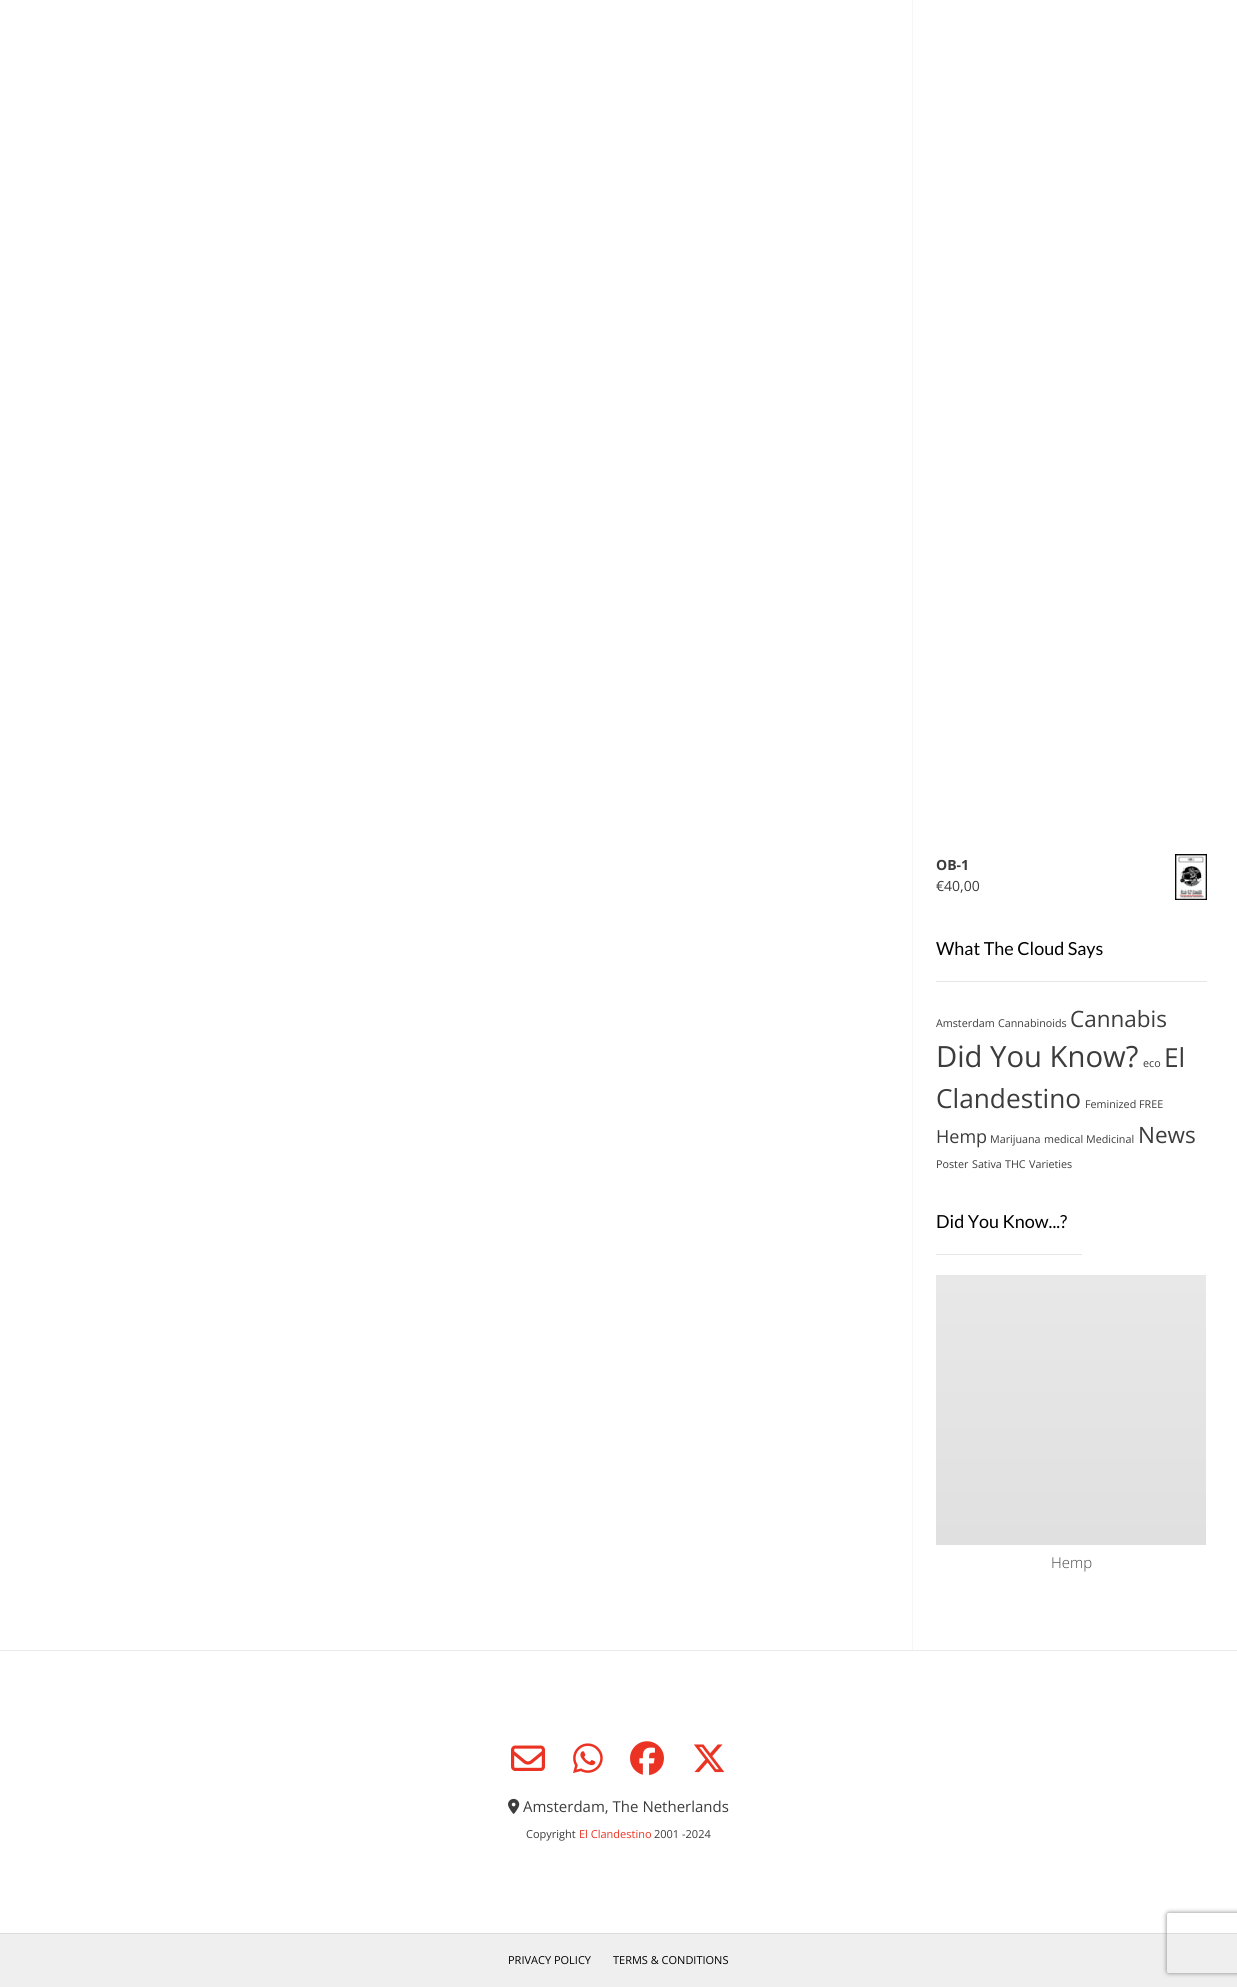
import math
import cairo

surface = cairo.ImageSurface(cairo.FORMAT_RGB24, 1237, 1987)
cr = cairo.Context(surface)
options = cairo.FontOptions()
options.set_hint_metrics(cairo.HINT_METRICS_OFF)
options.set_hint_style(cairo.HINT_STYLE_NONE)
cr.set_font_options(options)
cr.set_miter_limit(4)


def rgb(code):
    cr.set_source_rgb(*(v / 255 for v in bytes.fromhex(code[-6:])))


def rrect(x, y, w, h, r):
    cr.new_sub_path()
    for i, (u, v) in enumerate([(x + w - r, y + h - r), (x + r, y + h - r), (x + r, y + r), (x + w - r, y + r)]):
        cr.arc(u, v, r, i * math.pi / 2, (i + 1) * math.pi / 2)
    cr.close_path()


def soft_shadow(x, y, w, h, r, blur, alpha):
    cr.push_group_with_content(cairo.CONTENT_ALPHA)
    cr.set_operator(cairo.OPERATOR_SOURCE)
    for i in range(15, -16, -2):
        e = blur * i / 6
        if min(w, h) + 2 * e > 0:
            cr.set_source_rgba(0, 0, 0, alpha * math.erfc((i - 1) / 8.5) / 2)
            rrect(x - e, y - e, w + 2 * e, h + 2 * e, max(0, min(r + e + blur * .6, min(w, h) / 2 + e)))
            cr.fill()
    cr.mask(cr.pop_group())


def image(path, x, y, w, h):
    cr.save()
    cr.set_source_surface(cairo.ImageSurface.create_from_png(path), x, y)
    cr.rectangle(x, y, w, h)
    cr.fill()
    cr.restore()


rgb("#ffffff")
cr.paint()
rgb("#f5f5f5")
cr.rectangle(912, 0, 1, 1650)
cr.fill()
image("img/1.png", 1175, 854, 32, 46)
rgb("#e6e6e6")
cr.rectangle(936, 981, 271, 1)
cr.fill()
cr.rectangle(936, 1254, 146, 1)
cr.fill()
gradient = cairo.LinearGradient(936, 1545, 936, 1275)
gradient.add_color_stop_rgba(0, 0.878, 0.878, 0.878, 1)
gradient.add_color_stop_rgba(1, 0.91, 0.91, 0.91, 1)
cr.set_source(gradient)
cr.rectangle(936, 1275, 270, 270)
cr.fill()
rgb("#ebebeb")
cr.rectangle(0, 1650, 1237, 1)
cr.fill()
image("img/2.png", 511, 1745, 34, 26)
image("img/3.png", 573, 1743, 30, 31)
image("img/4.png", 630, 1741, 34, 35)
image("img/5.png", 693, 1744, 32, 29)
image("img/6.png", 508, 1798, 12, 16)
rgb("#efefef")
cr.rectangle(0, 1934, 1237, 53)
cr.fill()
rgb("#dcdcdc")
cr.rectangle(0, 1933, 1237, 1)
cr.fill()
cr.save()
cr.set_fill_rule(cairo.FILL_RULE_EVEN_ODD)
cr.new_path()
cr.move_to(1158, 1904)
cr.line_to(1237, 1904)
cr.line_to(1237, 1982)
cr.line_to(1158, 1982)
cr.close_path()
cr.move_to(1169, 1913)
cr.line_to(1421, 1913)
cr.curve_to(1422, 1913, 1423, 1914, 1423, 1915)
cr.line_to(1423, 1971)
cr.curve_to(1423, 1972, 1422, 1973, 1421, 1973)
cr.line_to(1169, 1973)
cr.curve_to(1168, 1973, 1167, 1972, 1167, 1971)
cr.line_to(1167, 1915)
cr.curve_to(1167, 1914, 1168, 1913, 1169, 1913)
cr.close_path()
cr.clip()
rgb("#808080")
soft_shadow(1167, 1913, 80, 60, 2, 2.5, 1)
cr.restore()
cr.select_font_face("Open Sans", cairo.FONT_SLANT_NORMAL, cairo.FONT_WEIGHT_BOLD)
cr.set_font_size(14)
rgb("#3c3c3c")
cr.move_to(936, 870)
cr.show_text("OB-1")
cr.select_font_face("Open Sans")
cr.move_to(936, 891)
cr.show_text("€40,00")
cr.select_font_face("Lato")
cr.set_font_size(18)
rgb("#000000")
cr.move_to(936, 955)
cr.show_text("What The Cloud Says")
cr.select_font_face("Open Sans")
cr.set_font_size(10.75)
rgb("#3c3c3c")
cr.move_to(936, 1027)
cr.show_text("Amsterdam")
cr.move_to(998, 1027)
cr.show_text("Cannabinoids")
cr.set_font_size(22.5)
cr.move_to(1070, 1027)
cr.show_text("Cannabis")
cr.set_font_size(29.25)
cr.move_to(936, 1067)
cr.show_text("Did You Know?")
cr.set_font_size(10.75)
cr.move_to(1143, 1067)
cr.show_text("eco")
cr.set_font_size(26.25)
cr.move_to(1164, 1067)
cr.show_text("El")
cr.move_to(936, 1108)
cr.show_text("Clandestino")
cr.set_font_size(10.75)
cr.move_to(1085, 1108)
cr.show_text("Feminized")
cr.move_to(1139, 1108)
cr.show_text("FREE")
cr.set_font_size(18)
cr.move_to(936, 1143)
cr.show_text("Hemp")
cr.set_font_size(10.75)
for x, y, s in [
    (990, 1143, "Marijuana"),
    (1044, 1143, "medical"),
    (1086, 1143, "Medicinal"),
]:
    cr.move_to(x, y)
    cr.show_text(s)
cr.set_font_size(22.5)
cr.move_to(1138, 1143)
cr.show_text("News")
cr.set_font_size(10.75)
for x, y, s in [
    (936, 1168, "Poster"),
    (972, 1168, "Sativa"),
    (1005, 1168, "THC"),
    (1029, 1168, "Varieties"),
]:
    cr.move_to(x, y)
    cr.show_text(s)
cr.select_font_face("Lato")
cr.set_font_size(18)
rgb("#000000")
cr.move_to(936, 1228)
cr.show_text("Did You Know...?")
cr.select_font_face("Open Sans Light")
cr.set_font_size(15)
rgb("#474747")
cr.move_to(1051, 1568)
cr.show_text("Hemp")
cr.select_font_face("Open Sans")
rgb("#3c3c3c")
cr.move_to(523, 1812)
cr.show_text("Amsterdam, The Netherlands")
cr.set_font_size(11)
cr.move_to(526, 1838)
cr.show_text("Copyright")
rgb("#eb3323")
cr.move_to(579, 1838)
cr.show_text("El Clandestino")
rgb("#3c3c3c")
cr.move_to(654, 1838)
cr.show_text("2001 -2024")
rgb("#000000")
cr.move_to(508, 1964)
cr.show_text("PRIVACY POLICY")
cr.move_to(613, 1964)
cr.show_text("TERMS & CONDITIONS")
surface.write_to_png("page.png")
